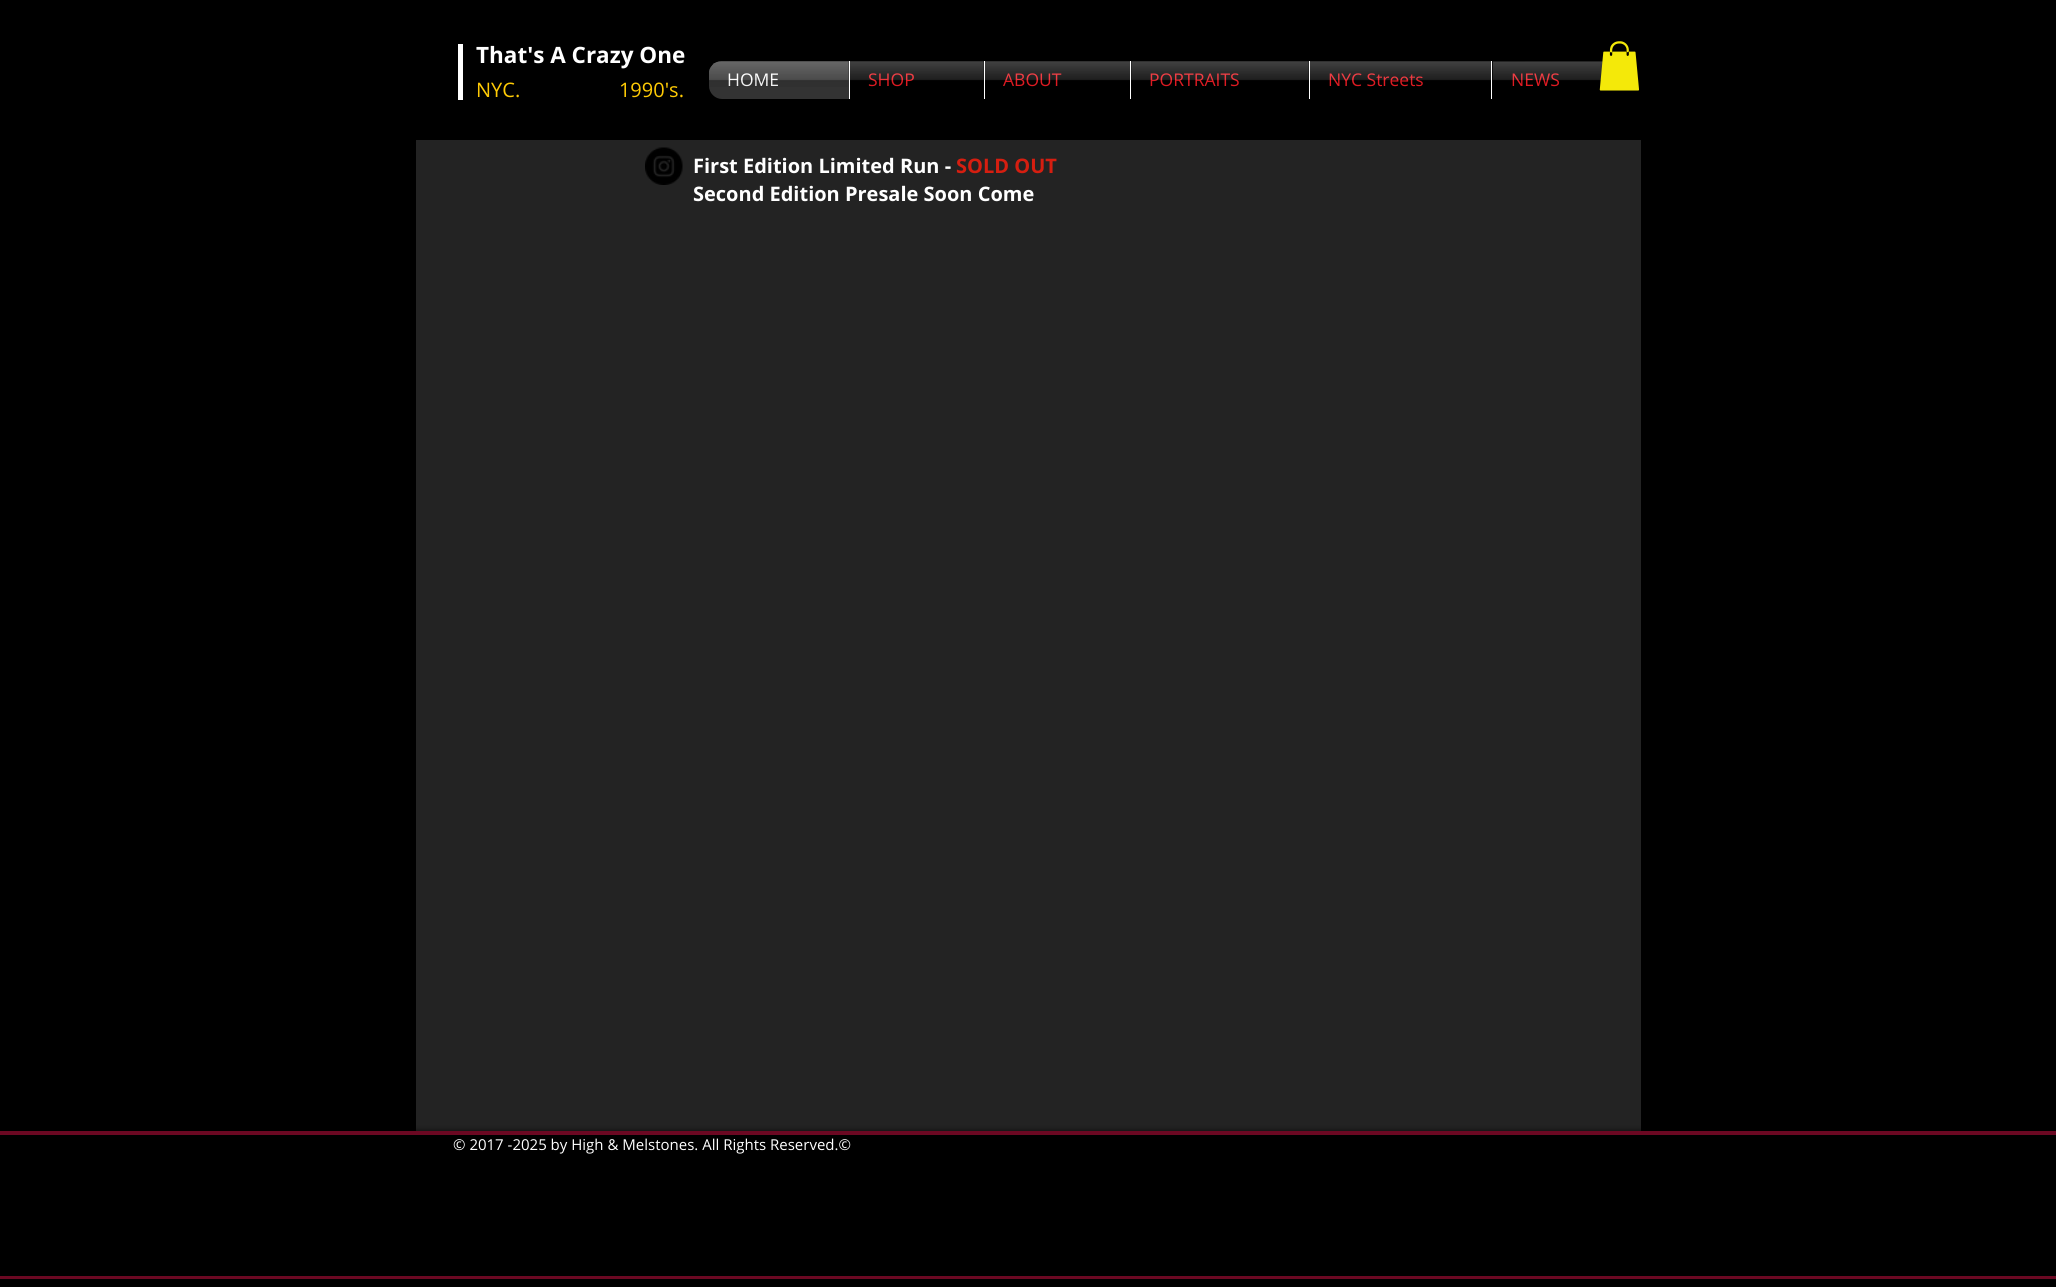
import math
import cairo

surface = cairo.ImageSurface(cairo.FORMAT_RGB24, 2056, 1287)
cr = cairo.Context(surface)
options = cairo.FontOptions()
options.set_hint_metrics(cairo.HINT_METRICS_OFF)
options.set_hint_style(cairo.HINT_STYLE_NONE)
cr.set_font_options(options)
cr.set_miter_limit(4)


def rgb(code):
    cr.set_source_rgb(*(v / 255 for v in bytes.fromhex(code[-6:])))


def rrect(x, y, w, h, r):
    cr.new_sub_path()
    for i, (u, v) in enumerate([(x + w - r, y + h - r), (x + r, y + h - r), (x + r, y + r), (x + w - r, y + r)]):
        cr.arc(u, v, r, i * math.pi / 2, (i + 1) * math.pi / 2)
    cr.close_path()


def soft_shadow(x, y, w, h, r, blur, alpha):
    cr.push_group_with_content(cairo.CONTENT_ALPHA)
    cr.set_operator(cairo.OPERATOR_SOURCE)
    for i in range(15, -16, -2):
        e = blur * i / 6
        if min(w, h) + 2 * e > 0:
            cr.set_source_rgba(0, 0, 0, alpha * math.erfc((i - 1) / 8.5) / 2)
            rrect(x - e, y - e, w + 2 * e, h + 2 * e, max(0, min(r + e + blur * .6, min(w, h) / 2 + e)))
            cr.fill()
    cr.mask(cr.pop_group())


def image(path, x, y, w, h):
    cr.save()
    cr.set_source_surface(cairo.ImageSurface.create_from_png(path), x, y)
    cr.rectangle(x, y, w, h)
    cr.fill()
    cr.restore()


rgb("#000000")
cr.paint()
rgb("#ffffff")
cr.rectangle(458, 44, 5, 56)
cr.fill()
image("img/1.png", 709, 61, 13, 13)
rgb("#333333")
cr.new_path()
cr.move_to(722, 61)
cr.line_to(849, 61)
cr.line_to(849, 99)
cr.line_to(722, 99)
cr.curve_to(715, 99, 709, 93, 709, 86)
cr.line_to(709, 74)
cr.curve_to(709, 67, 715, 61, 722, 61)
cr.close_path()
cr.fill()
for x, y, w, h, color in [
    (849, 61, 1, 38, "#ffffff"),
    (984, 61, 1, 38, "#ffffff"),
    (1130, 61, 1, 38, "#ffffff"),
    (1309, 61, 1, 38, "#ffffff"),
    (1491, 61, 1, 38, "#ffffff"),
    (416, 140, 1225, 991, "#232323"),
]:
    rgb(color)
    cr.rectangle(x, y, w, h)
    cr.fill()
image("img/9.png", 645, 147, 38, 38)
cr.save()
cr.set_fill_rule(cairo.FILL_RULE_EVEN_ODD)
cr.new_path()
cr.move_to(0, 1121)
cr.line_to(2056, 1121)
cr.line_to(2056, 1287)
cr.line_to(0, 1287)
cr.close_path()
cr.move_to(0, 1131)
cr.line_to(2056, 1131)
cr.line_to(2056, 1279)
cr.line_to(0, 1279)
cr.close_path()
cr.clip()
rgb("#000000")
soft_shadow(0, 1131, 2056, 148, 0, 3, 0.7)
cr.restore()
rgb("#6b0822")
cr.rectangle(0, 1131, 2056, 4)
cr.fill()
cr.rectangle(0, 1276, 2056, 3)
cr.fill()
cr.select_font_face("Open Sans", cairo.FONT_SLANT_NORMAL, cairo.FONT_WEIGHT_BOLD)
cr.set_font_size(22.5)
rgb("#ffffff")
cr.move_to(476, 63)
cr.show_text("That's A Crazy One")
cr.select_font_face("Open Sans")
cr.set_font_size(20)
rgb("#ffcb05")
cr.move_to(476, 97)
cr.show_text("NYC.                   1990's.")
cr.set_font_size(17.5)
rgb("#ffffff")
cr.move_to(727, 86)
cr.show_text("HOME")
image("img/2.png", 709, 61, 140, 26)
rgb("#ed1c24")
cr.move_to(868, 86)
cr.show_text("SHOP")
image("img/3.png", 850, 61, 134, 25)
cr.move_to(1003, 86)
cr.show_text("ABOUT")
image("img/4.png", 985, 61, 145, 25)
cr.move_to(1149, 86)
cr.show_text("PORTRAITS")
image("img/5.png", 1131, 61, 178, 25)
cr.move_to(1328, 86)
cr.show_text("NYC Streets")
image("img/6.png", 1310, 61, 181, 25)
cr.move_to(1511, 86)
cr.show_text("NEWS")
image("img/7.png", 1492, 61, 111, 25)
image("img/8.png", 1599, 41, 40, 50)
cr.select_font_face("Open Sans", cairo.FONT_SLANT_NORMAL, cairo.FONT_WEIGHT_BOLD)
cr.set_font_size(20)
rgb("#ffffff")
cr.move_to(693, 173)
cr.show_text("First Edition Limited Run -")
rgb("#d61e10")
cr.move_to(956, 173)
cr.show_text("SOLD OUT")
rgb("#ffffff")
cr.move_to(693, 201)
cr.show_text("Second Edition Presale Soon Come")
cr.select_font_face("Open Sans")
cr.set_font_size(15)
cr.move_to(453, 1150)
cr.show_text("© 2017 -2025 by High & Melstones. All Rights Reserved.©")
surface.write_to_png("page.png")
